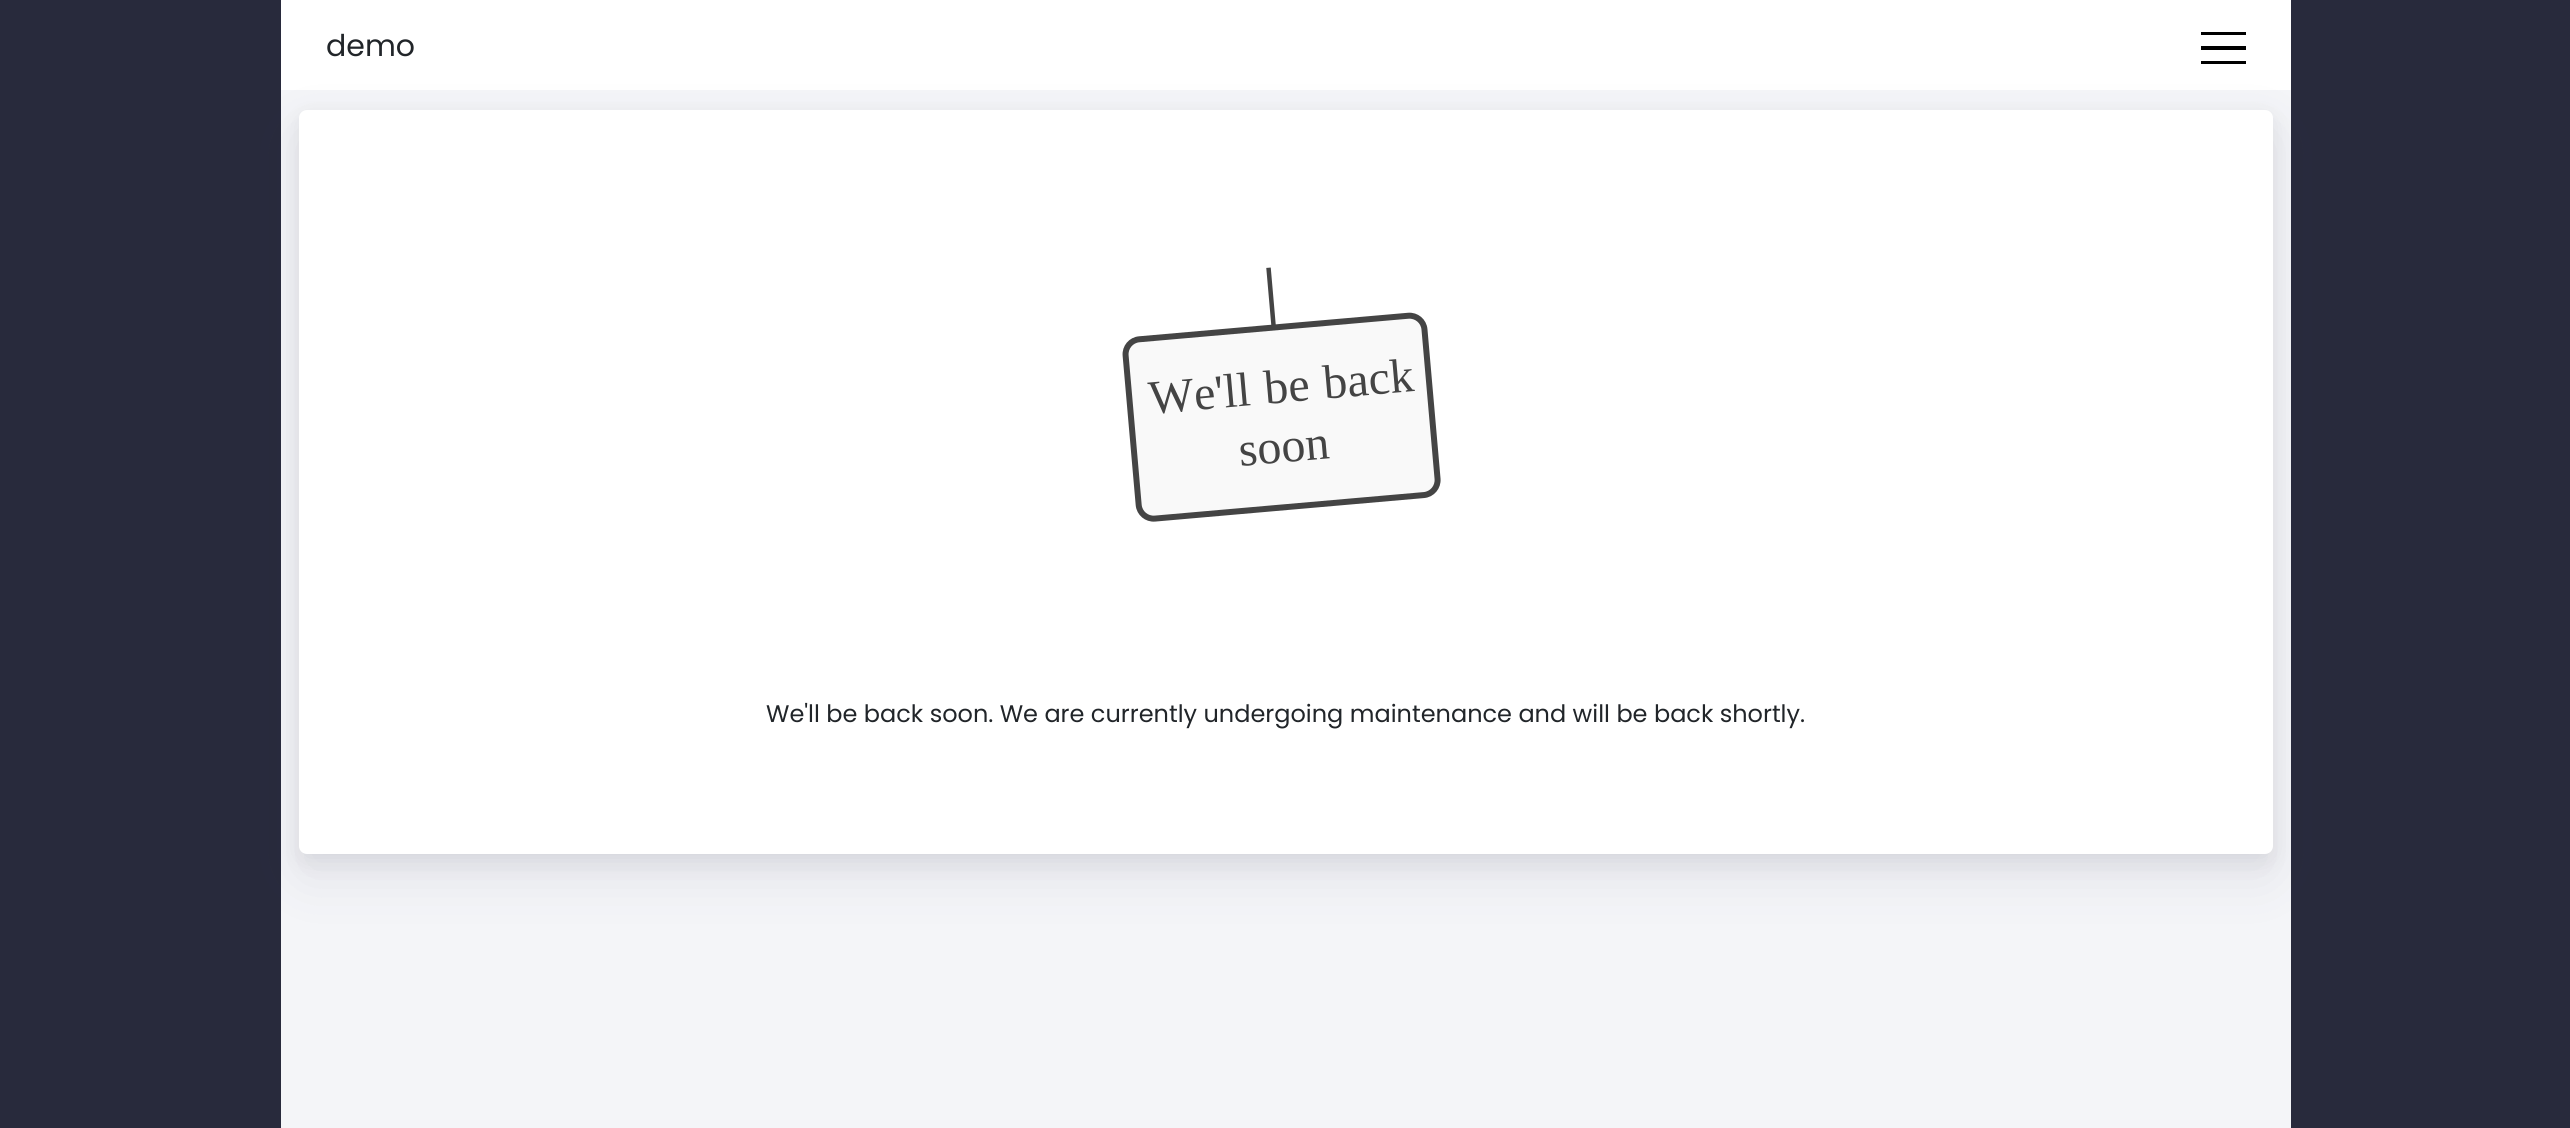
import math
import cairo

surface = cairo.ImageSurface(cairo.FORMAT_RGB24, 2570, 1128)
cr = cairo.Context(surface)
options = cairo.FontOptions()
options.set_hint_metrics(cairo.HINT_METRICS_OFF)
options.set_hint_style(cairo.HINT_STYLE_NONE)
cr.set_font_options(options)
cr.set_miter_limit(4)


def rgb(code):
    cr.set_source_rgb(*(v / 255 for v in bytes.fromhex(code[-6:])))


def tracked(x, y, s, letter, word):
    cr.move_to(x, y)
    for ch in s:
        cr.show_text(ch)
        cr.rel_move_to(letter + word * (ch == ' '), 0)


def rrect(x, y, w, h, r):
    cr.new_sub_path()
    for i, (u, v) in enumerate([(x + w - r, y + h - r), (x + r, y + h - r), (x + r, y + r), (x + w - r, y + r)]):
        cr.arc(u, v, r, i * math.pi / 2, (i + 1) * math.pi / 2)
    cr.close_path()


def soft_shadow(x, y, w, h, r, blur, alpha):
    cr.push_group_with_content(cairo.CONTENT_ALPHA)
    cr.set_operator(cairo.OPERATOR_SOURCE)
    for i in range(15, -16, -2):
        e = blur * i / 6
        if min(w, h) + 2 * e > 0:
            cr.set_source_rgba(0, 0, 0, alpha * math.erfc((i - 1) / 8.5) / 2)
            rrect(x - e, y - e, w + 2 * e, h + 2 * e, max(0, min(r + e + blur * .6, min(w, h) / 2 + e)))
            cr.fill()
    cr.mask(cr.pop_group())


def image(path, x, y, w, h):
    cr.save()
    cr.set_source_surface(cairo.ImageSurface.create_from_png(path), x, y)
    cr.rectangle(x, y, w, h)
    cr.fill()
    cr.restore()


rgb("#282a3c")
cr.paint()
for x, y, w, h, color in [
    (281, 0, 2010, 90, "#ffffff"),
    (2201, 32, 45, 3, "#000000"),
    (2201, 46, 45, 4, "#000000"),
    (281, 90, 2010, 1038, "#f4f5f8"),
]:
    rgb(color)
    cr.rectangle(x, y, w, h)
    cr.fill()
rgb("#32325d")
soft_shadow(299, 132, 1974, 744, 8, 26, 0.1)
rgb("#000000")
cr.rectangle(2201, 61, 45, 3)
cr.fill()
rgb("#000000")
soft_shadow(299, 117, 1974, 744, 8, 11, 0.07)
rgb("#ffffff")
rrect(299, 110, 1974, 744, 8)
cr.fill()
image("img/1.png", 1122, 267, 319, 255)
cr.select_font_face("Poppins")
cr.set_font_size(30)
rgb("#212529")
cr.move_to(326, 56)
cr.show_text("demo")
cr.select_font_face("Liberation Serif")
cr.set_font_size(48)
rgb("#444444")
cr.save()
cr.translate(1150, 414)
cr.rotate(-5 * math.pi / 180)
tracked(0, 0, "We'll be back", 0, 2)
cr.restore()
cr.save()
cr.translate(1240, 466)
cr.rotate(-5 * math.pi / 180)
cr.move_to(0, 0)
cr.show_text("soon")
cr.restore()
cr.select_font_face("Poppins")
cr.set_font_size(24)
rgb("#212529")
cr.move_to(766, 722)
cr.show_text("We'll be back soon. We are currently undergoing maintenance and will be back shortly.")
surface.write_to_png("page.png")
